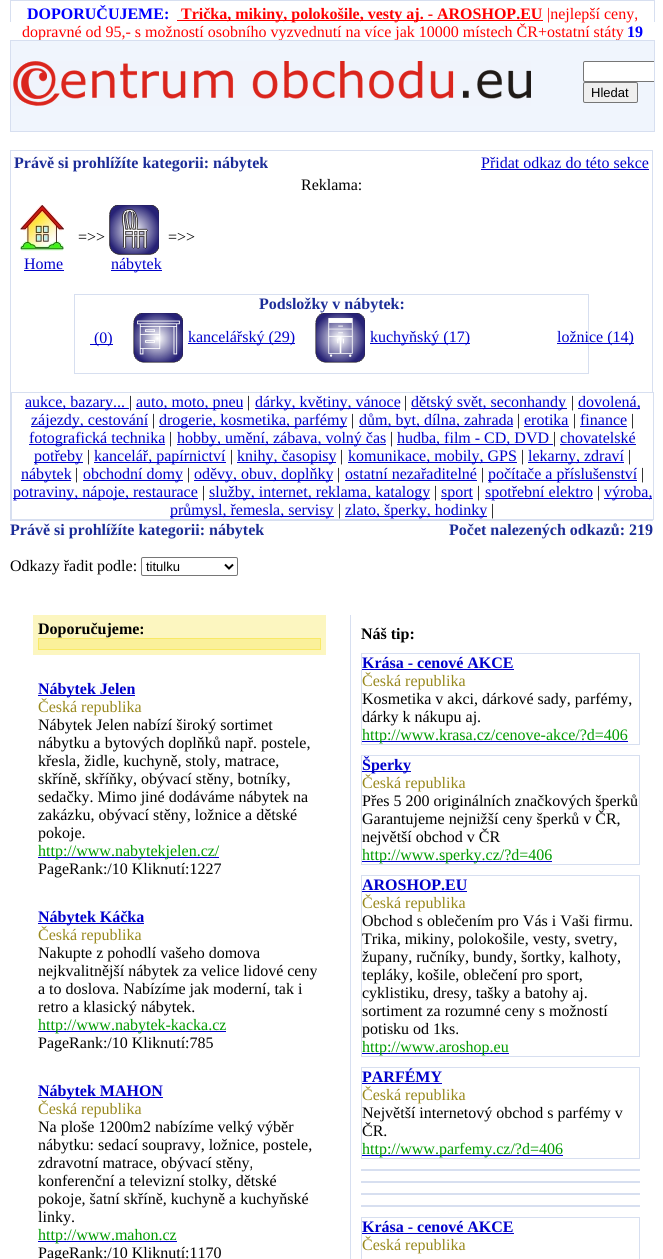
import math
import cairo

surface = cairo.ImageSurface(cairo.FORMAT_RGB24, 663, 1259)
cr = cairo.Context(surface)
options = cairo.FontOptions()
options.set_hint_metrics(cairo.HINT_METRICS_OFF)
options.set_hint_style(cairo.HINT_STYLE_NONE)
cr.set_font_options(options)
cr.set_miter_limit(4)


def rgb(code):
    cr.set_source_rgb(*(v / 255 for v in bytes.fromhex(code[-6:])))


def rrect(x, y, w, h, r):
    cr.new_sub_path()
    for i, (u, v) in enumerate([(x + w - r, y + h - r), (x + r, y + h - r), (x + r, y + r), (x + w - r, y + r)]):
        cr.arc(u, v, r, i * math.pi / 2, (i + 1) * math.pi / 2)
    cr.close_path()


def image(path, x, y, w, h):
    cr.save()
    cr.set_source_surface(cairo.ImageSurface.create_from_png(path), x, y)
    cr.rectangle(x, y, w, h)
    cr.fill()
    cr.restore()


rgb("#ffffff")
cr.paint()
cr.rectangle(10.5, 0.5, 644, 21)
rgb("#d7dff0")
cr.set_line_width(1)
cr.stroke()
rgb("#ffffff")
cr.rectangle(11, 21, 643, 1)
cr.fill()
rgb("#ff0000")
cr.rectangle(177, 20, 366, 1)
cr.fill()
cr.rectangle(10.5, 150.5, 642, 370)
rgb("#d7dff0")
cr.stroke()
rgb("#0000cc")
cr.rectangle(481, 169, 168, 1)
cr.fill()
image("img/2.png", 20, 205, 44, 46)
cr.rectangle(24, 270, 40, 1)
cr.fill()
image("img/3.png", 109, 205, 50, 50)
cr.rectangle(111, 270, 51, 1)
cr.fill()
cr.rectangle(74.5, 294.5, 514, 79)
rgb("#d7dff0")
cr.stroke()
rgb("#0000cc")
cr.rectangle(90, 344, 23, 1)
cr.fill()
image("img/4.png", 133, 313, 50, 50)
cr.rectangle(188, 343, 107, 1)
cr.fill()
image("img/5.png", 315, 313, 50, 50)
for x, y, w, h, color in [
    (370, 343, 100, 1, "#0000cc"),
    (557, 343, 77, 1, "#0000cc"),
    (652, 393, 1, 126, "#ffffff"),
]:
    rgb(color)
    cr.rectangle(x, y, w, h)
    cr.fill()
cr.rectangle(11.5, 392.5, 642, 127)
rgb("#d7dff0")
cr.stroke()
for x, y, w, h, color in [
    (25, 408, 104, 1, "#0000cc"),
    (136, 408, 107, 1, "#0000cc"),
    (255, 408, 145, 1, "#0000cc"),
    (411, 408, 156, 1, "#0000cc"),
    (578, 408, 62, 1, "#0000cc"),
    (31, 426, 117, 1, "#0000cc"),
    (159, 426, 188, 1, "#0000cc"),
    (359, 426, 154, 1, "#0000cc"),
    (524, 426, 45, 1, "#0000cc"),
    (580, 426, 47, 1, "#0000cc"),
    (29, 444, 136, 1, "#0000cc"),
    (177, 444, 209, 1, "#0000cc"),
    (397, 444, 156, 1, "#0000cc"),
    (560, 444, 76, 1, "#0000cc"),
    (34, 462, 49, 1, "#0000cc"),
    (94, 462, 132, 1, "#0000cc"),
    (237, 462, 99, 1, "#0000cc"),
    (348, 462, 169, 1, "#0000cc"),
    (528, 462, 96, 1, "#0000cc"),
    (21, 480, 50, 1, "#0000cc"),
    (83, 480, 100, 1, "#0000cc"),
    (194, 480, 139, 1, "#0000cc"),
    (345, 480, 132, 1, "#0000cc"),
    (488, 480, 149, 1, "#0000cc"),
    (13, 498, 185, 1, "#0000cc"),
    (209, 498, 221, 1, "#0000cc"),
    (441, 498, 32, 1, "#0000cc"),
    (485, 498, 108, 1, "#0000cc"),
    (604, 498, 48, 1, "#0000cc"),
    (170, 516, 164, 1, "#0000cc"),
    (345, 516, 142, 1, "#0000cc"),
]:
    rgb(color)
    cr.rectangle(x, y, w, h)
    cr.fill()
rrect(141.5, 557.5, 96, 18, 1.5)
rgb("#767676")
cr.stroke()
cr.new_path()
cr.move_to(225, 564.5)
cr.line_to(229, 568.5)
cr.line_to(233, 564.5)
rgb("#000000")
cr.set_line_width(2)
cr.stroke()
rgb("#fcf6c0")
cr.rectangle(33, 615, 293, 40)
cr.fill()
rgb("#faf09a")
cr.rectangle(38.5, 638.5, 282, 11)
cr.fill_preserve()
rgb("#f8e965")
cr.set_line_width(1)
cr.stroke()
for x, y, w, h, color in [
    (38, 695, 97, 1, "#0000cc"),
    (38, 857, 181, 1, "#0000cc"),
    (38, 923, 106, 1, "#0000cc"),
    (38, 1031, 188, 1, "#0000cc"),
    (38, 1097, 125, 1, "#0000cc"),
    (38, 1241, 139, 1, "#0000cc"),
    (350, 615, 1, 644, "#d7dff0"),
]:
    rgb(color)
    cr.rectangle(x, y, w, h)
    cr.fill()
cr.rectangle(361.5, 653.5, 278, 91)
cr.stroke()
rgb("#0000cc")
cr.rectangle(362, 669, 152, 1)
cr.fill()
cr.rectangle(362, 741, 266, 1)
cr.fill()
cr.rectangle(361.5, 755.5, 278, 109)
rgb("#d7dff0")
cr.stroke()
rgb("#0000cc")
cr.rectangle(362, 771, 49, 1)
cr.fill()
cr.rectangle(362, 861, 190, 1)
cr.fill()
cr.rectangle(361.5, 875.5, 278, 181)
rgb("#d7dff0")
cr.stroke()
rgb("#0000cc")
cr.rectangle(362, 891, 105, 1)
cr.fill()
cr.rectangle(362, 1053, 147, 1)
cr.fill()
cr.rectangle(361.5, 1067.5, 278, 91)
rgb("#d7dff0")
cr.stroke()
for x, y, w, h, color in [
    (362, 1083, 80, 1, "#0000cc"),
    (362, 1155, 201, 1, "#0000cc"),
    (361, 1169, 279, 2, "#d7dff0"),
    (361, 1181, 279, 2, "#d7dff0"),
    (361, 1193, 279, 2, "#d7dff0"),
    (361, 1205, 279, 2, "#d7dff0"),
]:
    rgb(color)
    cr.rectangle(x, y, w, h)
    cr.fill()
cr.rectangle(361.5, 1217.5, 278, 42)
cr.stroke()
rgb("#0000cc")
cr.rectangle(362, 1233, 152, 1)
cr.fill()
cr.select_font_face("Liberation Serif", cairo.FONT_SLANT_NORMAL, cairo.FONT_WEIGHT_BOLD)
cr.set_font_size(16)
rgb("#0000ff")
cr.move_to(27, 19)
cr.show_text("DOPORUČUJEME:")
rgb("#ff0000")
cr.move_to(181, 19)
cr.show_text("Trička, mikiny, polokošile, vesty aj. - AROSHOP.EU")
cr.select_font_face("Liberation Serif")
cr.move_to(547, 19)
cr.show_text("|nejlepší ceny,")
cr.move_to(22, 37)
cr.show_text("dopravné od 95,- s možností osobního vyzvednutí na více jak 10000 místech ČR+ostatní státy")
cr.select_font_face("Liberation Serif", cairo.FONT_SLANT_NORMAL, cairo.FONT_WEIGHT_BOLD)
rgb("#0000ff")
cr.move_to(627, 37)
cr.show_text("19")
rgb("#f0f5fd")
cr.rectangle(10.5, 40.5, 644, 91)
cr.fill_preserve()
rgb("#d7dff0")
cr.stroke()
image("img/1.png", 13, 61, 518, 45)
rgb("#ffffff")
cr.new_path()
cr.move_to(585, 61)
cr.line_to(654, 61)
cr.line_to(654, 82)
cr.line_to(585, 82)
cr.curve_to(584, 82, 583, 81, 583, 80)
cr.line_to(583, 63)
cr.curve_to(583, 62, 584, 61, 585, 61)
cr.close_path()
cr.fill()
cr.save()
cr.rectangle(11, 41, 643, 90)
cr.clip()
rrect(583.5, 61.5, 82, 20, 1.5)
rgb("#767676")
cr.stroke()
cr.restore()
rgb("#efefef")
rrect(583.5, 82.5, 54, 20, 1.5)
cr.fill_preserve()
rgb("#767676")
cr.stroke()
cr.select_font_face("Liberation Sans")
cr.set_font_size(13)
rgb("#000000")
cr.move_to(591, 97)
cr.show_text("Hledat")
cr.select_font_face("Liberation Serif", cairo.FONT_SLANT_NORMAL, cairo.FONT_WEIGHT_BOLD)
cr.set_font_size(16)
rgb("#1c2d98")
cr.move_to(14, 168)
cr.show_text("Právě si prohlížíte kategorii: nábytek")
cr.select_font_face("Liberation Serif")
rgb("#0000cc")
cr.move_to(481, 168)
cr.show_text("Přidat odkaz do této sekce")
rgb("#000000")
for x, y, s in [
    (301, 190, "Reklama:"),
    (78, 242, "=>>"),
    (168, 242, "=>>"),
]:
    cr.move_to(x, y)
    cr.show_text(s)
rgb("#0000cc")
cr.move_to(24, 269)
cr.show_text("Home")
cr.move_to(111, 269)
cr.show_text("nábytek")
cr.select_font_face("Liberation Serif", cairo.FONT_SLANT_NORMAL, cairo.FONT_WEIGHT_BOLD)
rgb("#1c2d98")
cr.move_to(259, 309)
cr.show_text("Podsložky v nábytek:")
cr.select_font_face("Liberation Serif")
rgb("#0000cc")
for x, y, s in [
    (94, 343, "(0)"),
    (188, 342, "kancelářský (29)"),
    (370, 342, "kuchyňský (17)"),
    (557, 342, "ložnice (14)"),
    (25, 407, "aukce, bazary..."),
]:
    cr.move_to(x, y)
    cr.show_text(s)
rgb("#000000")
cr.move_to(129, 407)
cr.show_text("|")
rgb("#0000cc")
cr.move_to(136, 407)
cr.show_text("auto, moto, pneu")
rgb("#000000")
cr.move_to(247, 407)
cr.show_text("|")
rgb("#0000cc")
cr.move_to(255, 407)
cr.show_text("dárky, květiny, vánoce")
rgb("#000000")
cr.move_to(404, 407)
cr.show_text("|")
rgb("#0000cc")
cr.move_to(411, 407)
cr.show_text("dětský svět, seconhandy")
rgb("#000000")
cr.move_to(571, 407)
cr.show_text("|")
rgb("#0000cc")
cr.move_to(578, 407)
cr.show_text("dovolená,")
cr.move_to(31, 425)
cr.show_text("zájezdy, cestování")
rgb("#000000")
cr.move_to(152, 425)
cr.show_text("|")
rgb("#0000cc")
cr.move_to(159, 425)
cr.show_text("drogerie, kosmetika, parfémy")
rgb("#000000")
cr.move_to(351, 425)
cr.show_text("|")
rgb("#0000cc")
cr.move_to(359, 425)
cr.show_text("dům, byt, dílna, zahrada")
rgb("#000000")
cr.move_to(517, 425)
cr.show_text("|")
rgb("#0000cc")
cr.move_to(524, 425)
cr.show_text("erotika")
rgb("#000000")
cr.move_to(573, 425)
cr.show_text("|")
rgb("#0000cc")
cr.move_to(580, 425)
cr.show_text("finance")
rgb("#000000")
cr.move_to(631, 425)
cr.show_text("|")
rgb("#0000cc")
cr.move_to(29, 443)
cr.show_text("fotografická technika")
rgb("#000000")
cr.move_to(169, 443)
cr.show_text("|")
rgb("#0000cc")
cr.move_to(177, 443)
cr.show_text("hobby, umění, zábava, volný čas")
rgb("#000000")
cr.move_to(390, 443)
cr.show_text("|")
rgb("#0000cc")
cr.move_to(397, 443)
cr.show_text("hudba, film - CD, DVD")
rgb("#000000")
cr.move_to(553, 443)
cr.show_text("|")
rgb("#0000cc")
cr.move_to(560, 443)
cr.show_text("chovatelské")
cr.move_to(34, 461)
cr.show_text("potřeby")
rgb("#000000")
cr.move_to(87, 461)
cr.show_text("|")
rgb("#0000cc")
cr.move_to(94, 461)
cr.show_text("kancelář, papírnictví")
rgb("#000000")
cr.move_to(230, 461)
cr.show_text("|")
rgb("#0000cc")
cr.move_to(237, 461)
cr.show_text("knihy, časopisy")
rgb("#000000")
cr.move_to(340, 461)
cr.show_text("|")
rgb("#0000cc")
cr.move_to(348, 461)
cr.show_text("komunikace, mobily, GPS")
rgb("#000000")
cr.move_to(521, 461)
cr.show_text("|")
rgb("#0000cc")
cr.move_to(528, 461)
cr.show_text("lekarny, zdraví")
rgb("#000000")
cr.move_to(628, 461)
cr.show_text("|")
rgb("#0000cc")
cr.move_to(21, 479)
cr.show_text("nábytek")
rgb("#000000")
cr.move_to(75, 479)
cr.show_text("|")
rgb("#0000cc")
cr.move_to(83, 479)
cr.show_text("obchodní domy")
rgb("#000000")
cr.move_to(187, 479)
cr.show_text("|")
rgb("#0000cc")
cr.move_to(194, 479)
cr.show_text("oděvy, obuv, doplňky")
rgb("#000000")
cr.move_to(337, 479)
cr.show_text("|")
rgb("#0000cc")
cr.move_to(345, 479)
cr.show_text("ostatní nezařaditelné")
rgb("#000000")
cr.move_to(481, 479)
cr.show_text("|")
rgb("#0000cc")
cr.move_to(488, 479)
cr.show_text("počítače a příslušenství")
rgb("#000000")
cr.move_to(641, 479)
cr.show_text("|")
rgb("#0000cc")
cr.move_to(13, 497)
cr.show_text("potraviny, nápoje, restaurace")
rgb("#000000")
cr.move_to(202, 497)
cr.show_text("|")
rgb("#0000cc")
cr.move_to(209, 497)
cr.show_text("služby, internet, reklama, katalogy")
rgb("#000000")
cr.move_to(434, 497)
cr.show_text("|")
rgb("#0000cc")
cr.move_to(441, 497)
cr.show_text("sport")
rgb("#000000")
cr.move_to(477, 497)
cr.show_text("|")
rgb("#0000cc")
cr.move_to(485, 497)
cr.show_text("spotřební elektro")
rgb("#000000")
cr.move_to(597, 497)
cr.show_text("|")
rgb("#0000cc")
cr.move_to(604, 497)
cr.show_text("výroba,")
cr.move_to(170, 515)
cr.show_text("průmysl, řemesla, servisy")
rgb("#000000")
cr.move_to(338, 515)
cr.show_text("|")
rgb("#0000cc")
cr.move_to(345, 515)
cr.show_text("zlato, šperky, hodinky")
rgb("#000000")
cr.move_to(491, 515)
cr.show_text("|")
cr.select_font_face("Liberation Serif", cairo.FONT_SLANT_NORMAL, cairo.FONT_WEIGHT_BOLD)
rgb("#1c2d98")
cr.move_to(10, 535)
cr.show_text("Právě si prohlížíte kategorii: nábytek")
cr.move_to(449, 535)
cr.show_text("Počet nalezených odkazů: 219")
cr.select_font_face("Liberation Serif")
rgb("#000000")
cr.move_to(10, 571)
cr.show_text("Odkazy řadit podle:")
cr.select_font_face("Liberation Sans")
cr.set_font_size(13)
cr.move_to(146, 571)
cr.show_text("titulku")
cr.select_font_face("Liberation Serif", cairo.FONT_SLANT_NORMAL, cairo.FONT_WEIGHT_BOLD)
cr.set_font_size(16)
cr.move_to(38, 634)
cr.show_text("Doporučujeme:")
rgb("#0000cc")
cr.move_to(38, 694)
cr.show_text("Nábytek Jelen")
cr.select_font_face("Liberation Serif")
rgb("#98881d")
cr.move_to(38, 712)
cr.show_text("Česká republika")
rgb("#000000")
for x, y, s in [
    (38, 730, "Nábytek Jelen nabízí široký sortimet"),
    (38, 748, "nábytku a bytových doplňků např. postele,"),
    (38, 766, "křesla, židle, kuchyně, stoly, matrace,"),
    (38, 784, "skříně, skříňky, obývací stěny, botníky,"),
    (38, 802, "sedačky. Mimo jiné dodáváme nábytek na"),
    (38, 820, "zakázku, obývací stěny, ložnice a dětské"),
    (38, 838, "pokoje."),
]:
    cr.move_to(x, y)
    cr.show_text(s)
rgb("#009900")
cr.move_to(38, 856)
cr.show_text("http://www.nabytekjelen.cz/")
rgb("#000000")
cr.move_to(38, 874)
cr.show_text("PageRank:/10 Kliknutí:1227")
cr.select_font_face("Liberation Serif", cairo.FONT_SLANT_NORMAL, cairo.FONT_WEIGHT_BOLD)
rgb("#0000cc")
cr.move_to(38, 922)
cr.show_text("Nábytek Káčka")
cr.select_font_face("Liberation Serif")
rgb("#98881d")
cr.move_to(38, 940)
cr.show_text("Česká republika")
rgb("#000000")
for x, y, s in [
    (38, 958, "Nakupte z pohodlí vašeho domova"),
    (38, 976, "nejkvalitnější nábytek za velice lidové ceny"),
    (38, 994, "a to doslova. Nabízíme jak moderní, tak i"),
    (38, 1012, "retro a klasický nábytek."),
]:
    cr.move_to(x, y)
    cr.show_text(s)
rgb("#009900")
cr.move_to(38, 1030)
cr.show_text("http://www.nabytek-kacka.cz")
rgb("#000000")
cr.move_to(38, 1048)
cr.show_text("PageRank:/10 Kliknutí:785")
cr.select_font_face("Liberation Serif", cairo.FONT_SLANT_NORMAL, cairo.FONT_WEIGHT_BOLD)
rgb("#0000cc")
cr.move_to(38, 1096)
cr.show_text("Nábytek MAHON")
cr.select_font_face("Liberation Serif")
rgb("#98881d")
cr.move_to(38, 1114)
cr.show_text("Česká republika")
rgb("#000000")
for x, y, s in [
    (38, 1132, "Na ploše 1200m2 nabízíme velký výběr"),
    (38, 1150, "nábytku: sedací soupravy, ložnice, postele,"),
    (38, 1168, "zdravotní matrace, obývací stěny,"),
    (38, 1186, "konferenční a televizní stolky, dětské"),
    (38, 1204, "pokoje, šatní skříně, kuchyně a kuchyňské"),
    (38, 1222, "linky."),
]:
    cr.move_to(x, y)
    cr.show_text(s)
rgb("#009900")
cr.move_to(38, 1240)
cr.show_text("http://www.mahon.cz")
rgb("#000000")
cr.move_to(38, 1258)
cr.show_text("PageRank:/10 Kliknutí:1170")
cr.select_font_face("Liberation Serif", cairo.FONT_SLANT_NORMAL, cairo.FONT_WEIGHT_BOLD)
cr.move_to(361, 639)
cr.show_text("Náš tip:")
rgb("#0000cc")
cr.move_to(362, 668)
cr.show_text("Krása - cenové AKCE")
cr.select_font_face("Liberation Serif")
rgb("#98881d")
cr.move_to(362, 686)
cr.show_text("Česká republika")
rgb("#000000")
cr.move_to(362, 704)
cr.show_text("Kosmetika v akci, dárkové sady, parfémy,")
cr.move_to(362, 722)
cr.show_text("dárky k nákupu aj.")
rgb("#009900")
cr.move_to(362, 740)
cr.show_text("http://www.krasa.cz/cenove-akce/?d=406")
cr.select_font_face("Liberation Serif", cairo.FONT_SLANT_NORMAL, cairo.FONT_WEIGHT_BOLD)
rgb("#0000cc")
cr.move_to(362, 770)
cr.show_text("Šperky")
cr.select_font_face("Liberation Serif")
rgb("#98881d")
cr.move_to(362, 788)
cr.show_text("Česká republika")
rgb("#000000")
for x, y, s in [
    (362, 806, "Přes 5 200 originálních značkových šperků"),
    (362, 824, "Garantujeme nejnižší ceny šperků v ČR,"),
    (362, 842, "největší obchod v ČR"),
]:
    cr.move_to(x, y)
    cr.show_text(s)
rgb("#009900")
cr.move_to(362, 860)
cr.show_text("http://www.sperky.cz/?d=406")
cr.select_font_face("Liberation Serif", cairo.FONT_SLANT_NORMAL, cairo.FONT_WEIGHT_BOLD)
rgb("#0000cc")
cr.move_to(362, 890)
cr.show_text("AROSHOP.EU")
cr.select_font_face("Liberation Serif")
rgb("#98881d")
cr.move_to(362, 908)
cr.show_text("Česká republika")
rgb("#000000")
for x, y, s in [
    (362, 926, "Obchod s oblečením pro Vás i Vaši firmu."),
    (362, 944, "Trika, mikiny, polokošile, vesty, svetry,"),
    (362, 962, "župany, ručníky, bundy, šortky, kalhoty,"),
    (362, 980, "tepláky, košile, oblečení pro sport,"),
    (362, 998, "cyklistiku, dresy, tašky a batohy aj."),
    (362, 1016, "sortiment za rozumné ceny s možností"),
    (362, 1034, "potisku od 1ks."),
]:
    cr.move_to(x, y)
    cr.show_text(s)
rgb("#009900")
cr.move_to(362, 1052)
cr.show_text("http://www.aroshop.eu")
cr.select_font_face("Liberation Serif", cairo.FONT_SLANT_NORMAL, cairo.FONT_WEIGHT_BOLD)
rgb("#0000cc")
cr.move_to(362, 1082)
cr.show_text("PARFÉMY")
cr.select_font_face("Liberation Serif")
rgb("#98881d")
cr.move_to(362, 1100)
cr.show_text("Česká republika")
rgb("#000000")
cr.move_to(362, 1118)
cr.show_text("Největší internetový obchod s parfémy v")
cr.move_to(362, 1136)
cr.show_text("ČR.")
rgb("#009900")
cr.move_to(362, 1154)
cr.show_text("http://www.parfemy.cz/?d=406")
cr.select_font_face("Liberation Serif", cairo.FONT_SLANT_NORMAL, cairo.FONT_WEIGHT_BOLD)
rgb("#0000cc")
cr.move_to(362, 1232)
cr.show_text("Krása - cenové AKCE")
cr.select_font_face("Liberation Serif")
rgb("#98881d")
cr.move_to(362, 1250)
cr.show_text("Česká republika")
surface.write_to_png("page.png")
